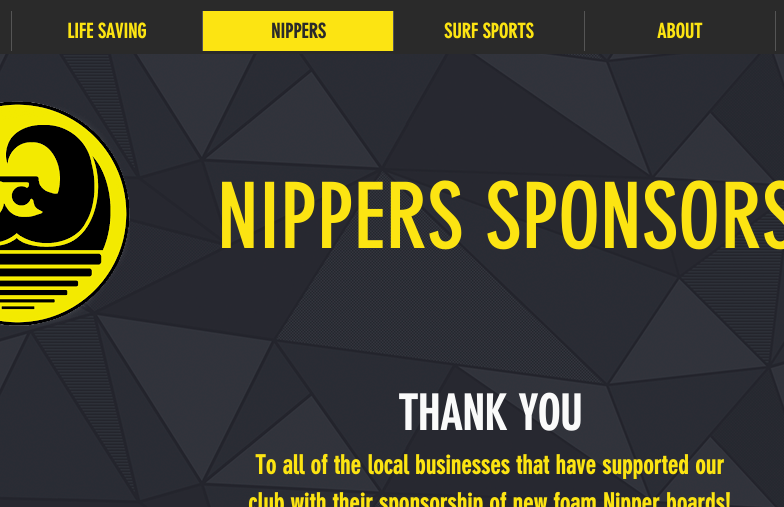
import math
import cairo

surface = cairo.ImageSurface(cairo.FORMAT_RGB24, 784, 507)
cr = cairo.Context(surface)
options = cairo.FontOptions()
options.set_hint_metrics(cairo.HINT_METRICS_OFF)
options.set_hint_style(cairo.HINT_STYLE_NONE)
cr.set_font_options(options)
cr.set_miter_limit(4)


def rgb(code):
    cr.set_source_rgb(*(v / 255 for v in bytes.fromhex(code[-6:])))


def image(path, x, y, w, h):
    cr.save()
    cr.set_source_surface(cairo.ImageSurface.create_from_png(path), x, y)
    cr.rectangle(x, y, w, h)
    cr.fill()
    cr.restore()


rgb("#ffffff")
cr.paint()
for x, y, w, h, color in [
    (0, 0, 784, 54, "#2a2a2a"),
    (11, 11, 1, 40, "#555555"),
    (203, 11, 190, 40, "#fce412"),
    (202, 11, 1, 40, "#555555"),
    (393, 11, 1, 40, "#555555"),
    (584, 11, 1, 40, "#555555"),
    (775, 11, 1, 40, "#555555"),
]:
    rgb(color)
    cr.rectangle(x, y, w, h)
    cr.fill()
image("img/2.png", 0, 54, 784, 453)
image("img/1.png", 0, 101, 130, 225)
cr.select_font_face("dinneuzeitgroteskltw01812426", cairo.FONT_SLANT_NORMAL, cairo.FONT_WEIGHT_BOLD)
cr.set_font_size(20)
rgb("#fce412")
cr.move_to(67, 38)
cr.show_text("LIFE SAVING")
rgb("#2a2a2a")
cr.move_to(271, 38)
cr.show_text("NIPPERS")
rgb("#fce412")
cr.move_to(444, 38)
cr.show_text("SURF SPORTS")
cr.move_to(657, 38)
cr.show_text("ABOUT")
cr.select_font_face("dinneuzeitgroteskltw01812426")
cr.set_font_size(90)
cr.move_to(217, 248)
cr.show_text("NIPPERS SPONSORS")
cr.select_font_face("dinneuzeitgroteskltw01812426", cairo.FONT_SLANT_NORMAL, cairo.FONT_WEIGHT_BOLD)
cr.set_font_size(48)
rgb("#fafafa")
cr.move_to(398, 430)
cr.show_text("THANK YOU")
cr.set_font_size(26)
rgb("#fce412")
cr.move_to(255, 474)
cr.show_text("To all of the local businesses that have supported our")
cr.move_to(248, 512)
cr.show_text("club with their sponsorship of new foam Nipper boards!")
surface.write_to_png("page.png")
